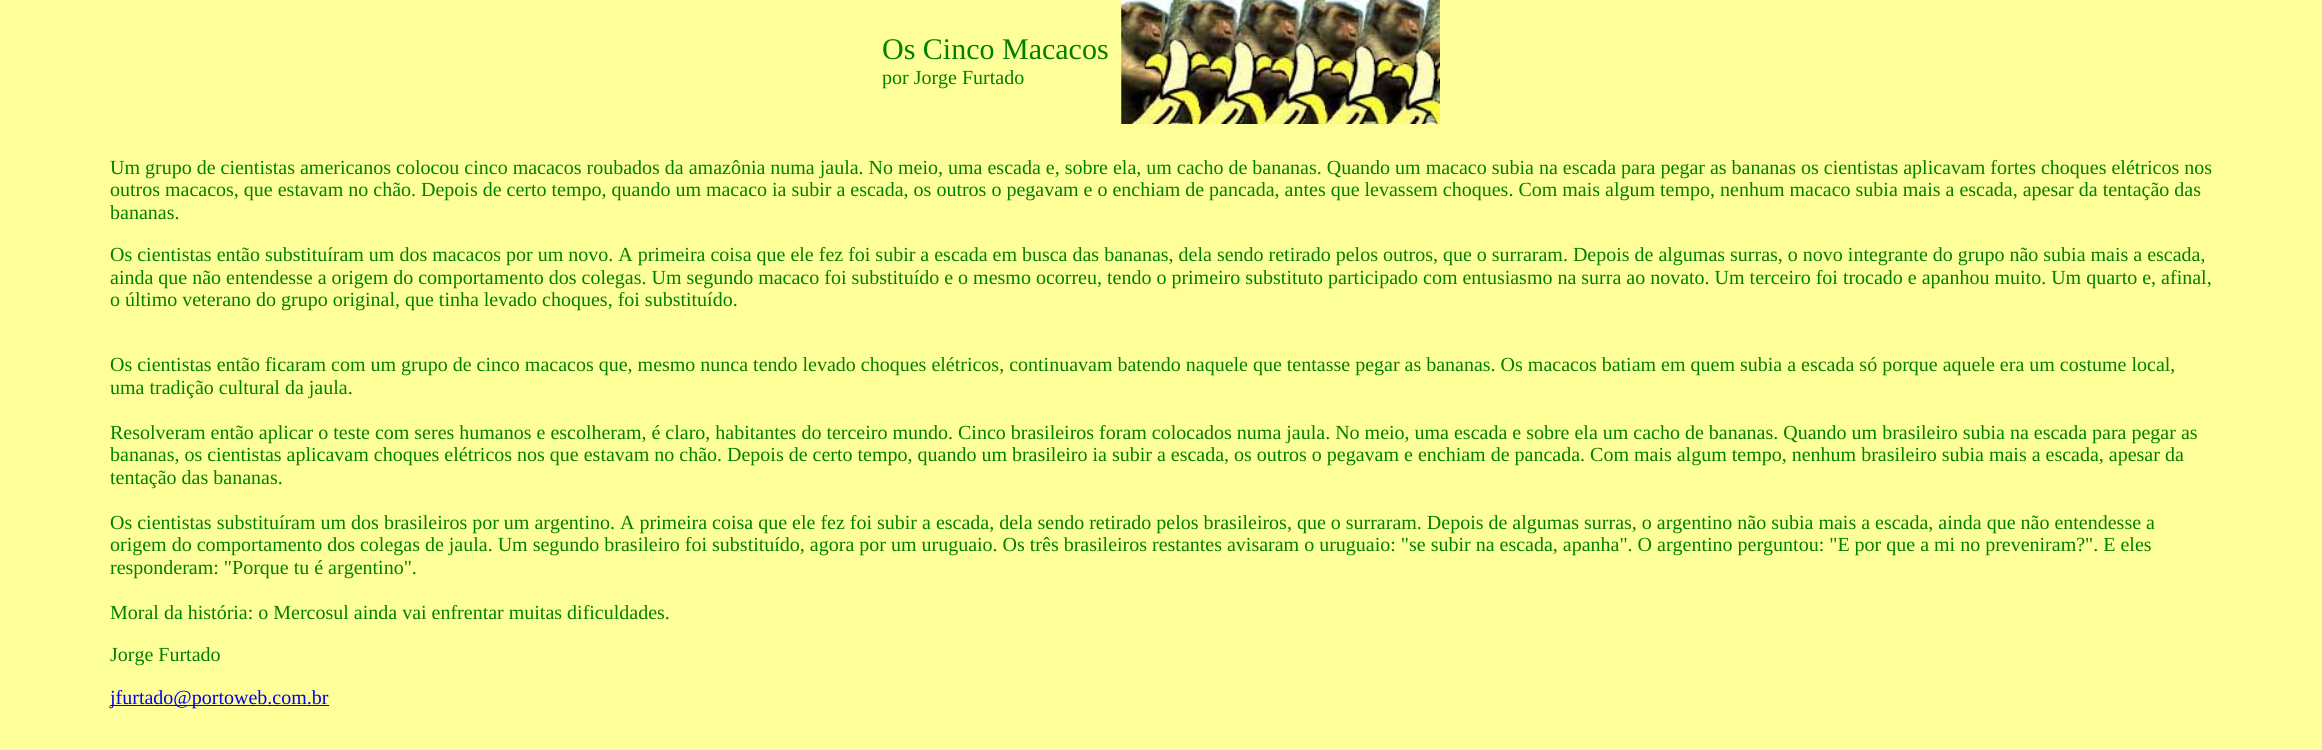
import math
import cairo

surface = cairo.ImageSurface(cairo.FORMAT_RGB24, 2322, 750)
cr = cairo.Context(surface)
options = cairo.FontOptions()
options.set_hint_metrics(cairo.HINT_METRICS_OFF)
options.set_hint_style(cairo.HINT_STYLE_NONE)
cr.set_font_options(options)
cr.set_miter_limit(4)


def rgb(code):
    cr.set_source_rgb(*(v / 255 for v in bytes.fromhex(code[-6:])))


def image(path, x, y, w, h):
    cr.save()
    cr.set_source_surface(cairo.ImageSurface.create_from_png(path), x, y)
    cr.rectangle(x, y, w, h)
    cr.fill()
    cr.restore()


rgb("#ffff99")
cr.paint()
image("img/1.png", 1121, 0, 319, 124)
rgb("#0000ee")
cr.rectangle(110, 705, 219, 1)
cr.fill()
cr.select_font_face("Liberation Serif")
cr.set_font_size(30)
rgb("#008000")
cr.move_to(882, 59)
cr.show_text("Os Cinco Macacos")
cr.set_font_size(20)
for x, y, s in [
    (882, 84, "por Jorge Furtado"),
    (110, 174, "Um grupo de cientistas americanos colocou cinco macacos roubados da amazônia numa jaula. No meio, uma escada e, sobre ela, um cacho de bananas. Quando um macaco subia na escada para pegar as bananas os cientistas aplicavam fortes choques elétricos nos"),
    (110, 196, "outros macacos, que estavam no chão. Depois de certo tempo, quando um macaco ia subir a escada, os outros o pegavam e o enchiam de pancada, antes que levassem choques. Com mais algum tempo, nenhum macaco subia mais a escada, apesar da tentação das"),
    (110, 219, "bananas."),
    (110, 261, "Os cientistas então substituíram um dos macacos por um novo. A primeira coisa que ele fez foi subir a escada em busca das bananas, dela sendo retirado pelos outros, que o surraram. Depois de algumas surras, o novo integrante do grupo não subia mais a escada,"),
    (110, 284, "ainda que não entendesse a origem do comportamento dos colegas. Um segundo macaco foi substituído e o mesmo ocorreu, tendo o primeiro substituto participado com entusiasmo na surra ao novato. Um terceiro foi trocado e apanhou muito. Um quarto e, afinal,"),
    (110, 306, "o último veterano do grupo original, que tinha levado choques, foi substituído."),
    (110, 371, "Os cientistas então ficaram com um grupo de cinco macacos que, mesmo nunca tendo levado choques elétricos, continuavam batendo naquele que tentasse pegar as bananas. Os macacos batiam em quem subia a escada só porque aquele era um costume local,"),
    (110, 394, "uma tradição cultural da jaula."),
    (110, 439, "Resolveram então aplicar o teste com seres humanos e escolheram, é claro, habitantes do terceiro mundo. Cinco brasileiros foram colocados numa jaula. No meio, uma escada e sobre ela um cacho de bananas. Quando um brasileiro subia na escada para pegar as"),
    (110, 461, "bananas, os cientistas aplicavam choques elétricos nos que estavam no chão. Depois de certo tempo, quando um brasileiro ia subir a escada, os outros o pegavam e enchiam de pancada. Com mais algum tempo, nenhum brasileiro subia mais a escada, apesar da"),
    (110, 484, "tentação das bananas."),
    (110, 529, "Os cientistas substituíram um dos brasileiros por um argentino. A primeira coisa que ele fez foi subir a escada, dela sendo retirado pelos brasileiros, que o surraram. Depois de algumas surras, o argentino não subia mais a escada, ainda que não entendesse a"),
    (110, 551, "origem do comportamento dos colegas de jaula. Um segundo brasileiro foi substituído, agora por um uruguaio. Os três brasileiros restantes avisaram o uruguaio: \"se subir na escada, apanha\". O argentino perguntou: \"E por que a mi no preveniram?\". E eles"),
    (110, 574, "responderam: \"Porque tu é argentino\"."),
    (110, 619, "Moral da história: o Mercosul ainda vai enfrentar muitas dificuldades."),
    (110, 661, "Jorge Furtado"),
]:
    cr.move_to(x, y)
    cr.show_text(s)
rgb("#0000ee")
cr.move_to(110, 704)
cr.show_text("jfurtado@portoweb.com.br")
surface.write_to_png("page.png")
